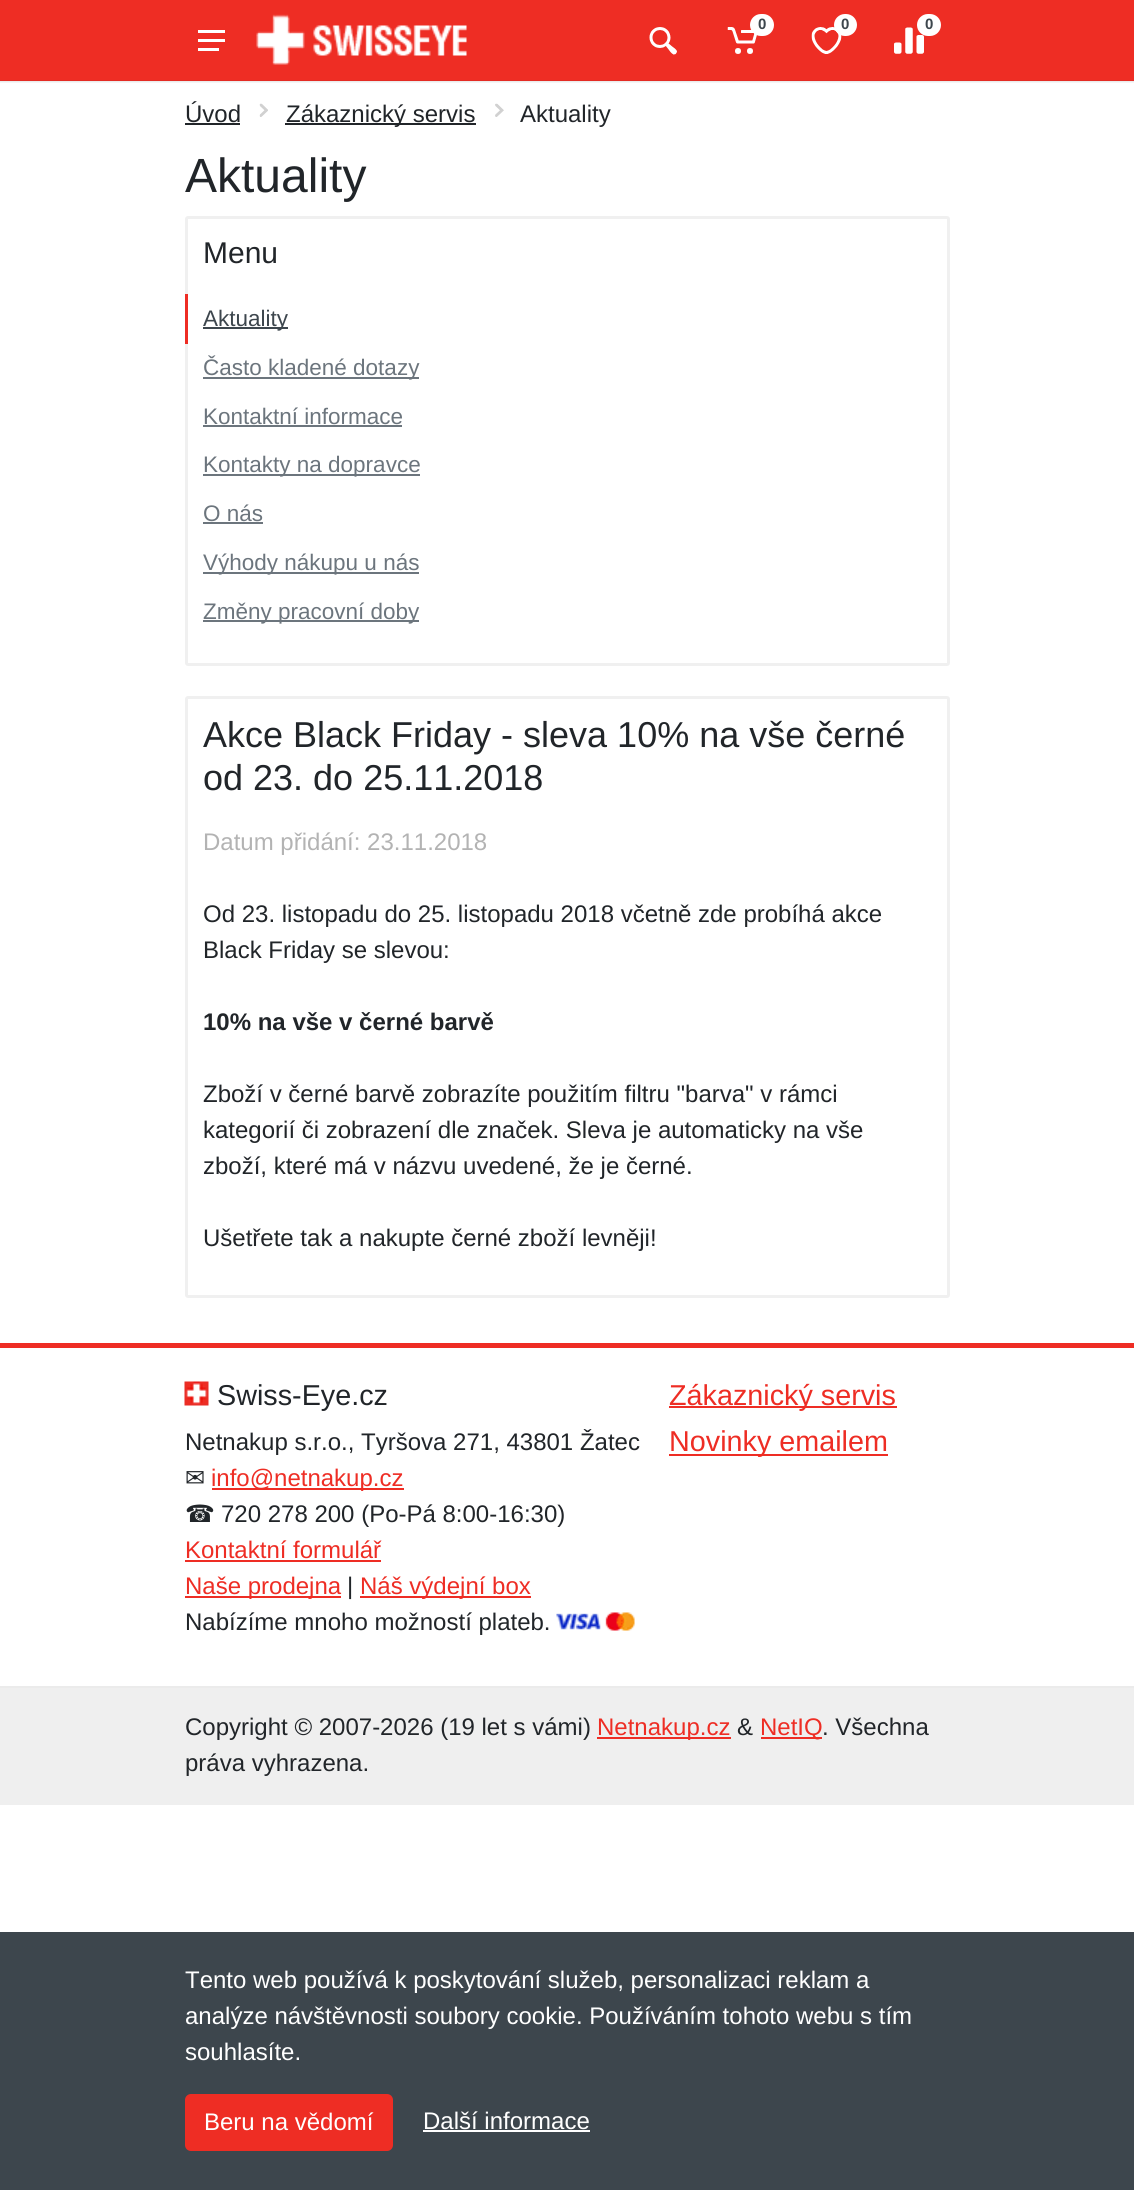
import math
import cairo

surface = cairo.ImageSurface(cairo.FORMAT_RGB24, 1134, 2190)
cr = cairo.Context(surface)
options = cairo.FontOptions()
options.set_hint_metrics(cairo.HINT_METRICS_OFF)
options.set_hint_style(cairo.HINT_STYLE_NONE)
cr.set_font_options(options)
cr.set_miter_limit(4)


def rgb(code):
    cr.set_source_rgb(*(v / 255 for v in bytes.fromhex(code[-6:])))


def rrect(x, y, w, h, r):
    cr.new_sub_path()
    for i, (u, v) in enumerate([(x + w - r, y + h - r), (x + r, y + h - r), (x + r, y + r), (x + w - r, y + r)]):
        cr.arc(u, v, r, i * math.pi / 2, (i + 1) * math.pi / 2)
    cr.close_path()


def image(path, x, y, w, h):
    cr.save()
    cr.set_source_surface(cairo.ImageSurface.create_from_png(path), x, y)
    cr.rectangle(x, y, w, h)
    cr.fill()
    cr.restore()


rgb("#ffffff")
cr.paint()
for x, y, w, h, color in [
    (0, 82, 1134, 1, "#f5f5f5"),
    (0, 81, 1134, 1, "#ebebeb"),
    (0, 0, 1134, 80, "#ee2d24"),
    (0, 80, 1134, 1, "#e42b23"),
]:
    rgb(color)
    cr.rectangle(x, y, w, h)
    cr.fill()
image("img/1.png", 256, 14, 211, 51)
image("img/2.png", 727, 27, 30, 27)
rgb("#ffffff")
rrect(750, 14, 24, 22, 11)
cr.fill()
image("img/3.png", 811, 27, 31, 27)
rrect(834, 14, 23, 22, 11)
cr.fill()
image("img/4.png", 894, 27, 30, 27)
rrect(917, 14, 24, 22, 11)
cr.fill()
image("img/5.png", 649, 27, 28, 28)
image("img/6.png", 198, 30, 27, 21)
rgb("#212529")
cr.rectangle(185, 123, 55, 2)
cr.fill()
image("img/7.png", 259, 103, 9, 14)
cr.rectangle(285, 123, 191, 2)
cr.fill()
image("img/8.png", 495, 103, 9, 14)
rrect(186.5, 217.5, 762, 447, 1.5)
rgb("#f0f0f0")
cr.set_line_width(3)
cr.stroke()
for x, y, w, h, color in [
    (185, 294, 3, 50, "#ee2d24"),
    (203, 327, 85, 2, "#3d464d"),
    (203, 377, 216, 2, "#6c757d"),
    (203, 425, 199, 2, "#6c757d"),
    (203, 474, 217, 2, "#6c757d"),
    (203, 522, 60, 2, "#6c757d"),
    (203, 572, 216, 2, "#6c757d"),
    (203, 620, 216, 2, "#6c757d"),
]:
    rgb(color)
    cr.rectangle(x, y, w, h)
    cr.fill()
rrect(186.5, 697.5, 762, 599, 1.5)
rgb("#f0f0f0")
cr.stroke()
rgb("#ee2d24")
cr.rectangle(0, 1343, 1134, 5)
cr.fill()
image("img/9.png", 184, 1381, 25, 25)
for x, y, w, h, color in [
    (212, 1488, 192, 2, "#ee2d24"),
    (185, 1560, 196, 2, "#ee2d24"),
    (185, 1596, 156, 2, "#ee2d24"),
    (360, 1596, 171, 2, "#ee2d24"),
]:
    rgb(color)
    cr.rectangle(x, y, w, h)
    cr.fill()
image("img/10.png", 556, 1612, 79, 19)
for x, y, w, h, color in [
    (669, 1406, 228, 2, "#ee2d24"),
    (669, 1454, 219, 2, "#ee2d24"),
    (0, 1688, 1134, 117, "#efefef"),
    (0, 1686, 1134, 2, "#ebebeb"),
    (597, 1737, 134, 2, "#ee2d24"),
    (761, 1737, 61, 2, "#ee2d24"),
    (0, 1932, 1134, 258, "#3d464d"),
]:
    rgb(color)
    cr.rectangle(x, y, w, h)
    cr.fill()
rgb("#ee2d24")
rrect(186, 2095, 206, 55, 5)
cr.fill_preserve()
cr.set_line_width(2)
cr.stroke()
rgb("#ffffff")
cr.rectangle(423, 2130, 167, 2)
cr.fill()
cr.select_font_face("Liberation Sans", cairo.FONT_SLANT_NORMAL, cairo.FONT_WEIGHT_BOLD)
cr.set_font_size(15)
rgb("#3d464d")
for x, y, s in [
    (758, 29, "0"),
    (841, 29, "0"),
    (925, 29, "0"),
]:
    cr.move_to(x, y)
    cr.show_text(s)
cr.select_font_face("Liberation Sans")
cr.set_font_size(24)
rgb("#212529")
for x, y, s in [
    (185, 122, "Úvod"),
    (286, 122, "Zákaznický servis"),
    (520, 122, "Aktuality"),
]:
    cr.move_to(x, y)
    cr.show_text(s)
cr.set_font_size(48)
cr.move_to(185, 192)
cr.show_text("Aktuality")
cr.set_font_size(30)
cr.move_to(203, 263)
cr.show_text("Menu")
cr.set_font_size(22.5)
rgb("#3d464d")
cr.move_to(203, 326)
cr.show_text("Aktuality")
rgb("#6c757d")
for x, y, s in [
    (203, 375, "Často kladené dotazy"),
    (203, 424, "Kontaktní informace"),
    (203, 472, "Kontakty na dopravce"),
    (203, 521, "O nás"),
    (203, 570, "Výhody nákupu u nás"),
    (203, 619, "Změny pracovní doby"),
]:
    cr.move_to(x, y)
    cr.show_text(s)
cr.set_font_size(36)
rgb("#212529")
cr.move_to(203, 747)
cr.show_text("Akce Black Friday - sleva 10% na vše černé")
cr.move_to(203, 790)
cr.show_text("od 23. do 25.11.2018")
cr.set_font_size(24)
rgb("#b3b3b3")
cr.move_to(203, 850)
cr.show_text("Datum přidání: 23.11.2018")
rgb("#212529")
cr.move_to(203, 922)
cr.show_text("Od 23. listopadu do 25. listopadu 2018 včetně zde probíhá akce")
cr.move_to(203, 958)
cr.show_text("Black Friday se slevou:")
cr.select_font_face("Liberation Sans", cairo.FONT_SLANT_NORMAL, cairo.FONT_WEIGHT_BOLD)
cr.move_to(203, 1030)
cr.show_text("10% na vše v černé barvě")
cr.select_font_face("Liberation Sans")
for x, y, s in [
    (203, 1102, "Zboží v černé barvě zobrazíte použitím filtru \"barva\" v rámci"),
    (203, 1138, "kategorií či zobrazení dle značek. Sleva je automaticky na vše"),
    (203, 1174, "zboží, které má v názvu uvedené, že je černé."),
    (203, 1246, "Ušetřete tak a nakupte černé zboží levněji!"),
]:
    cr.move_to(x, y)
    cr.show_text(s)
cr.set_font_size(28.75)
cr.move_to(217, 1405)
cr.show_text("Swiss-Eye.cz")
cr.set_font_size(24)
cr.move_to(185, 1450)
cr.show_text("Netnakup s.r.o., Tyršova 271, 43801 Žatec")
cr.select_font_face("DejaVu Sans")
cr.move_to(185, 1486)
cr.show_text("✉")
cr.select_font_face("Liberation Sans")
rgb("#ee2d24")
cr.move_to(211, 1486)
cr.show_text("info@netnakup.cz")
cr.select_font_face("DejaVu Sans")
rgb("#212529")
cr.move_to(185, 1522)
cr.show_text("☎")
cr.select_font_face("Liberation Sans")
cr.move_to(221, 1522)
cr.show_text("720 278 200 (Po-Pá 8:00-16:30)")
rgb("#ee2d24")
cr.move_to(185, 1558)
cr.show_text("Kontaktní formulář")
cr.move_to(185, 1594)
cr.show_text("Naše prodejna")
rgb("#212529")
cr.move_to(347, 1594)
cr.show_text("|")
rgb("#ee2d24")
cr.move_to(360, 1594)
cr.show_text("Náš výdejní box")
rgb("#212529")
cr.move_to(185, 1630)
cr.show_text("Nabízíme mnoho možností plateb.")
cr.set_font_size(28.75)
rgb("#ee2d24")
cr.move_to(669, 1405)
cr.show_text("Zákaznický servis")
cr.move_to(669, 1451)
cr.show_text("Novinky emailem")
cr.set_font_size(24)
rgb("#212529")
cr.move_to(185, 1735)
cr.show_text("Copyright © 2007-2026 (19 let s vámi)")
rgb("#ee2d24")
cr.move_to(597, 1735)
cr.show_text("Netnakup.cz")
rgb("#212529")
cr.move_to(737, 1735)
cr.show_text("&")
rgb("#ee2d24")
cr.move_to(760, 1735)
cr.show_text("NetIQ")
rgb("#212529")
cr.move_to(822, 1735)
cr.show_text(". Všechna")
cr.move_to(185, 1771)
cr.show_text("práva vyhrazena.")
rgb("#ffffff")
for x, y, s in [
    (185, 1988, "Tento web používá k poskytování služeb, personalizaci reklam a"),
    (185, 2024, "analýze návštěvnosti soubory cookie. Používáním tohoto webu s tím"),
    (185, 2060, "souhlasíte."),
    (204, 2130, "Beru na vědomí"),
    (423, 2129, "Další informace"),
]:
    cr.move_to(x, y)
    cr.show_text(s)
surface.write_to_png("page.png")
